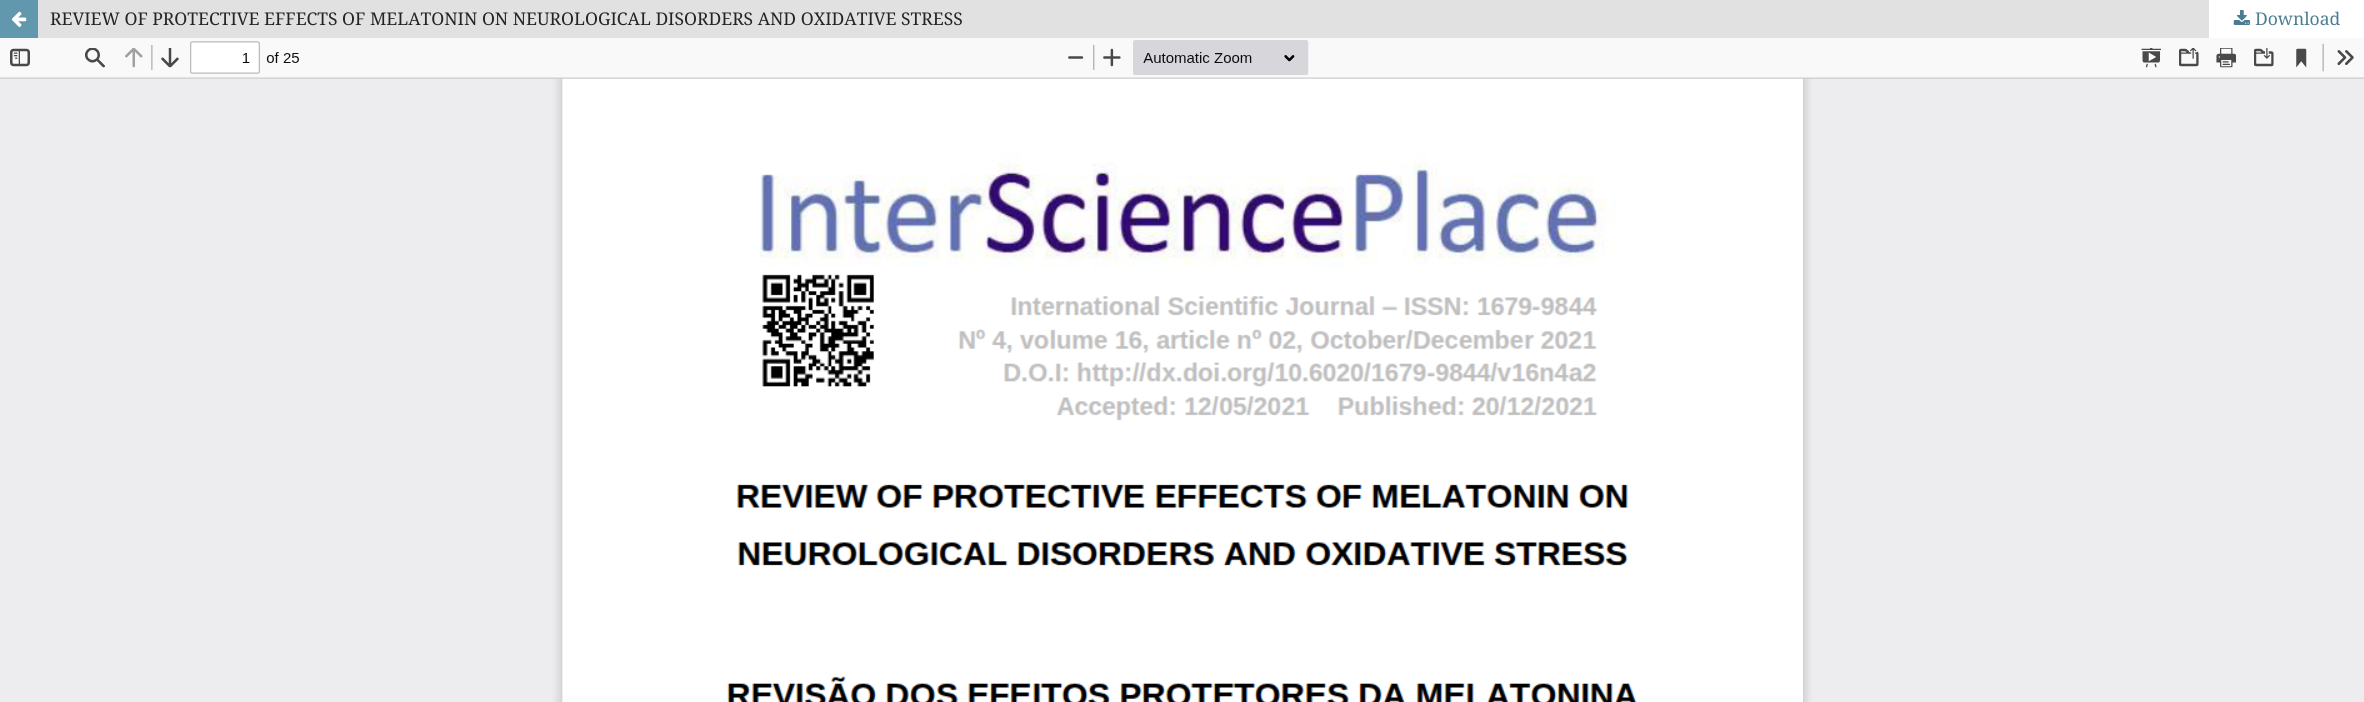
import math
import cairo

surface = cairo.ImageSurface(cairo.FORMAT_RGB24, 2364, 702)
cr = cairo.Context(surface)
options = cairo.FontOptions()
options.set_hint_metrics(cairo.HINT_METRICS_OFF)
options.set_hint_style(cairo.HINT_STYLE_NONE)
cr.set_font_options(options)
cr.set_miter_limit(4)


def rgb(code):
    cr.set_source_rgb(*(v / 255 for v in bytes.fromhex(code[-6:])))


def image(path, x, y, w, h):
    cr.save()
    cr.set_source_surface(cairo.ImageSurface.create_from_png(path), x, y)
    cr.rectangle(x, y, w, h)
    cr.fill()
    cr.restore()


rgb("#ffffff")
cr.paint()
rgb("#e1e1e1")
cr.rectangle(38, 0, 2171, 38)
cr.fill()
rgb("#6298ae")
cr.rectangle(0, 0, 38, 38)
cr.fill()
image("img/1.png", 11, 11, 16, 16)
image("img/2.png", 2233, 10, 17, 15)
image("img/3.png", 0, 38, 2364, 664)
cr.select_font_face("Noto Serif")
cr.set_font_size(17.5)
rgb("#242424")
cr.move_to(50, 25)
cr.show_text("REVIEW OF PROTECTIVE EFFECTS OF MELATONIN ON NEUROLOGICAL DISORDERS AND OXIDATIVE STRESS")
rgb("#4b7d92")
cr.move_to(2255, 25)
cr.show_text("Download")
surface.write_to_png("page.png")
